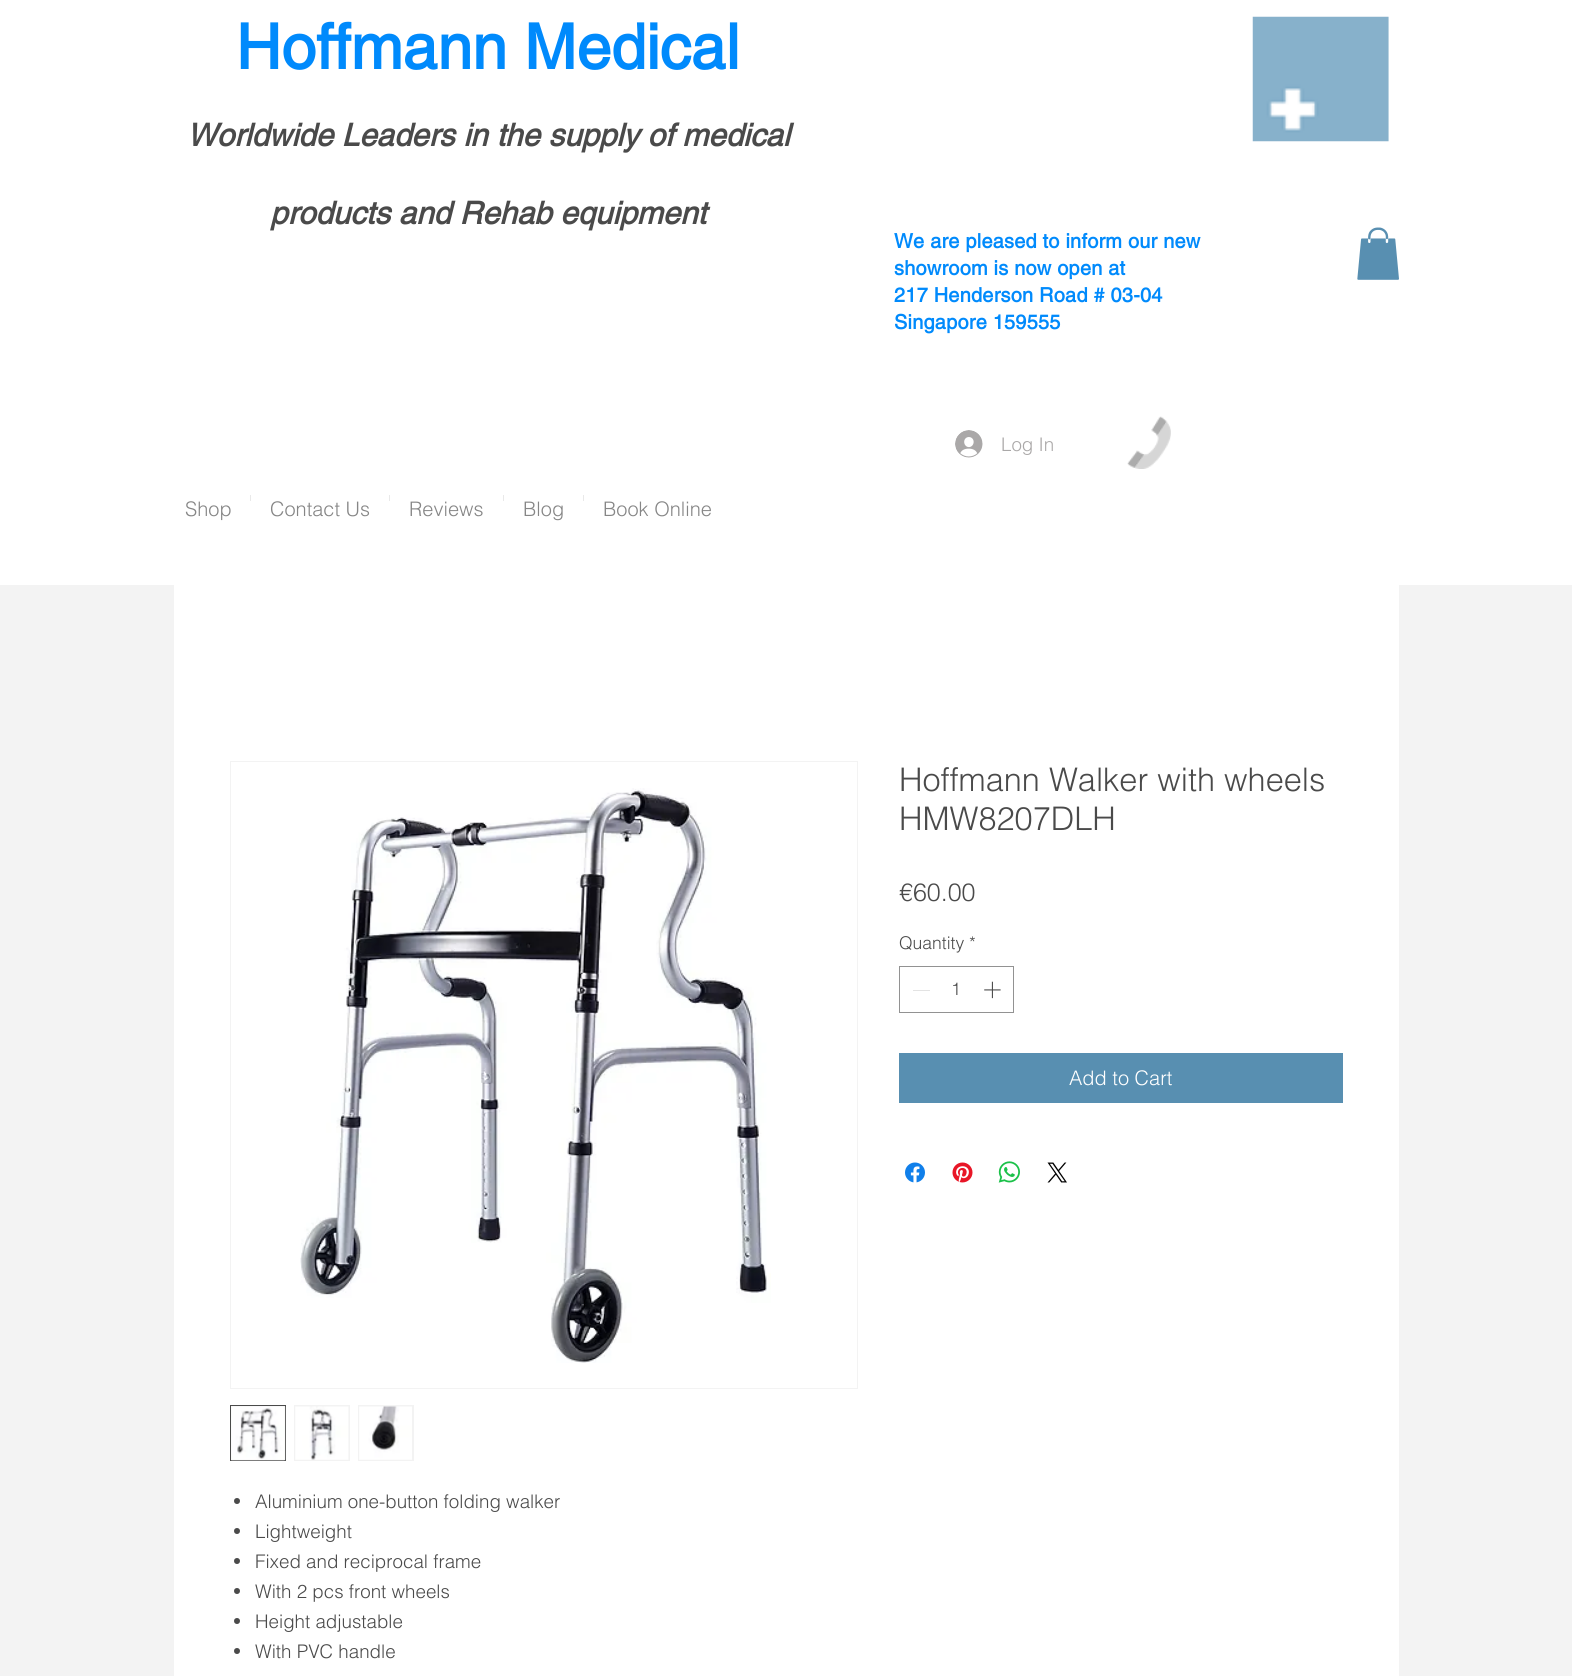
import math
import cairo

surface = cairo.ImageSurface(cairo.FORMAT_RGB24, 1572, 1676)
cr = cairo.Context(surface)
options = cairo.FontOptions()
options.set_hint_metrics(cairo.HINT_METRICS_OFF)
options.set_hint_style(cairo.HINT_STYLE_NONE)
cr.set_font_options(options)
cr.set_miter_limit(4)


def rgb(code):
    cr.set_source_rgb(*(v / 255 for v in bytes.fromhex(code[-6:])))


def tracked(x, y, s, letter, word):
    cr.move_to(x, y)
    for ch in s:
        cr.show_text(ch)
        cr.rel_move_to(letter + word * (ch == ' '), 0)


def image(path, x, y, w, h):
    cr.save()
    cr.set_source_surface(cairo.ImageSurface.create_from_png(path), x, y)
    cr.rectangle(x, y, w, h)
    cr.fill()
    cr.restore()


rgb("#f3f3f3")
cr.paint()
rgb("#ffffff")
cr.rectangle(0, 0, 1572, 585)
cr.fill()
image("img/1.png", 1252, 16, 137, 126)
image("img/2.png", 1357, 227, 42, 53)
image("img/3.png", 955, 430, 28, 28)
image("img/4.png", 1127, 416, 44, 53)
for x, y, w, h, color in [
    (250, 495, 1, 6, "#e9e9e9"),
    (389, 495, 1, 6, "#e9e9e9"),
    (503, 495, 1, 6, "#e9e9e9"),
    (583, 495, 1, 6, "#e9e9e9"),
    (174, 585, 1225, 1091, "#ffffff"),
]:
    rgb(color)
    cr.rectangle(x, y, w, h)
    cr.fill()
cr.rectangle(899.5, 966.5, 114, 46)
rgb("#929292")
cr.set_line_width(1)
cr.stroke()
rgb("#e3e3e3")
cr.rectangle(913, 990, 17, 1)
cr.fill()
image("img/5.png", 984, 981, 17, 18)
rgb("#588fb1")
cr.rectangle(899, 1053, 444, 50)
cr.fill()
image("img/6.png", 905, 1162, 20, 21)
image("img/7.png", 952, 1162, 21, 21)
image("img/8.png", 998, 1161, 22, 22)
image("img/9.png", 1047, 1162, 20, 21)
cr.rectangle(230.5, 761.5, 627, 627)
rgb("#f3f3f3")
cr.stroke()
image("img/10.png", 300, 788, 471, 575)
cr.rectangle(230.5, 1405.5, 55, 55)
cr.fill_preserve()
rgb("#4a4a4a")
cr.stroke()
image("img/11.png", 231, 1406, 55, 55)
rgb("#f3f3f3")
cr.rectangle(294, 1405, 56, 56)
cr.fill()
image("img/12.png", 295, 1406, 54, 54)
cr.rectangle(358, 1405, 56, 56)
cr.fill()
image("img/13.png", 359, 1406, 53, 54)
rgb("#4a4a4a")
cr.arc(237, 1501, 3, 0, 2 * math.pi)
cr.fill()
cr.arc(237, 1531, 3, 0, 2 * math.pi)
cr.fill()
cr.arc(237, 1561, 3, 0, 2 * math.pi)
cr.fill()
cr.arc(237, 1591, 3, 0, 2 * math.pi)
cr.fill()
cr.arc(237, 1621, 3, 0, 2 * math.pi)
cr.fill()
cr.arc(237, 1651, 3, 0, 2 * math.pi)
cr.fill()
cr.select_font_face("helvetica", cairo.FONT_SLANT_NORMAL, cairo.FONT_WEIGHT_BOLD)
cr.set_font_size(62.5)
rgb("#008afc")
cr.move_to(236, 69)
cr.show_text("Hoffmann Medical")
cr.select_font_face("helvetica", cairo.FONT_SLANT_ITALIC, cairo.FONT_WEIGHT_BOLD)
cr.set_font_size(31.25)
rgb("#4a4a4a")
cr.move_to(187, 146)
cr.show_text("Worldwide Leaders in the supply of medical")
cr.move_to(270, 224)
cr.show_text("products and Rehab equipment")
cr.select_font_face("helvetica", cairo.FONT_SLANT_NORMAL, cairo.FONT_WEIGHT_BOLD)
cr.set_font_size(20)
rgb("#008afc")
for x, y, s in [
    (894, 248, "We are pleased to inform our new"),
    (894, 275, "showroom is now open at"),
    (894, 302, "217 Henderson Road # 03-04"),
    (894, 329, "Singapore 159555"),
]:
    tracked(x, y, s, 0.2, 0)
cr.select_font_face("helvetica Light")
cr.set_font_size(18.75)
rgb("#aaa8a8")
cr.move_to(1001, 451)
cr.show_text("Log In")
cr.set_font_size(20)
rgb("#868686")
for x, y, s in [
    (185, 516, "Shop"),
    (270, 516, "Contact Us"),
    (409, 516, "Reviews"),
    (523, 516, "Blog"),
    (603, 516, "Book Online"),
]:
    cr.move_to(x, y)
    cr.show_text(s)
cr.set_font_size(32.5)
rgb("#4a4a4a")
cr.move_to(899, 791)
cr.show_text("Hoffmann Walker with wheels")
cr.move_to(899, 830)
cr.show_text("HMW8207DLH")
cr.set_font_size(25)
cr.move_to(899, 901)
cr.show_text("€60.00")
cr.set_font_size(17.5)
cr.move_to(899, 949)
cr.show_text("Quantity *")
cr.move_to(951, 995)
cr.show_text("1")
cr.set_font_size(20)
rgb("#ffffff")
cr.move_to(1069, 1085)
cr.show_text("Add to Cart")
cr.set_font_size(18.75)
rgb("#4a4a4a")
for x, y, s in [
    (255, 1508, "Aluminium one-button folding walker"),
    (255, 1538, "Lightweight"),
    (255, 1568, "Fixed and reciprocal frame"),
    (255, 1598, "With 2 pcs front wheels"),
    (255, 1628, "Height adjustable"),
    (255, 1658, "With PVC handle"),
]:
    cr.move_to(x, y)
    cr.show_text(s)
surface.write_to_png("page.png")
